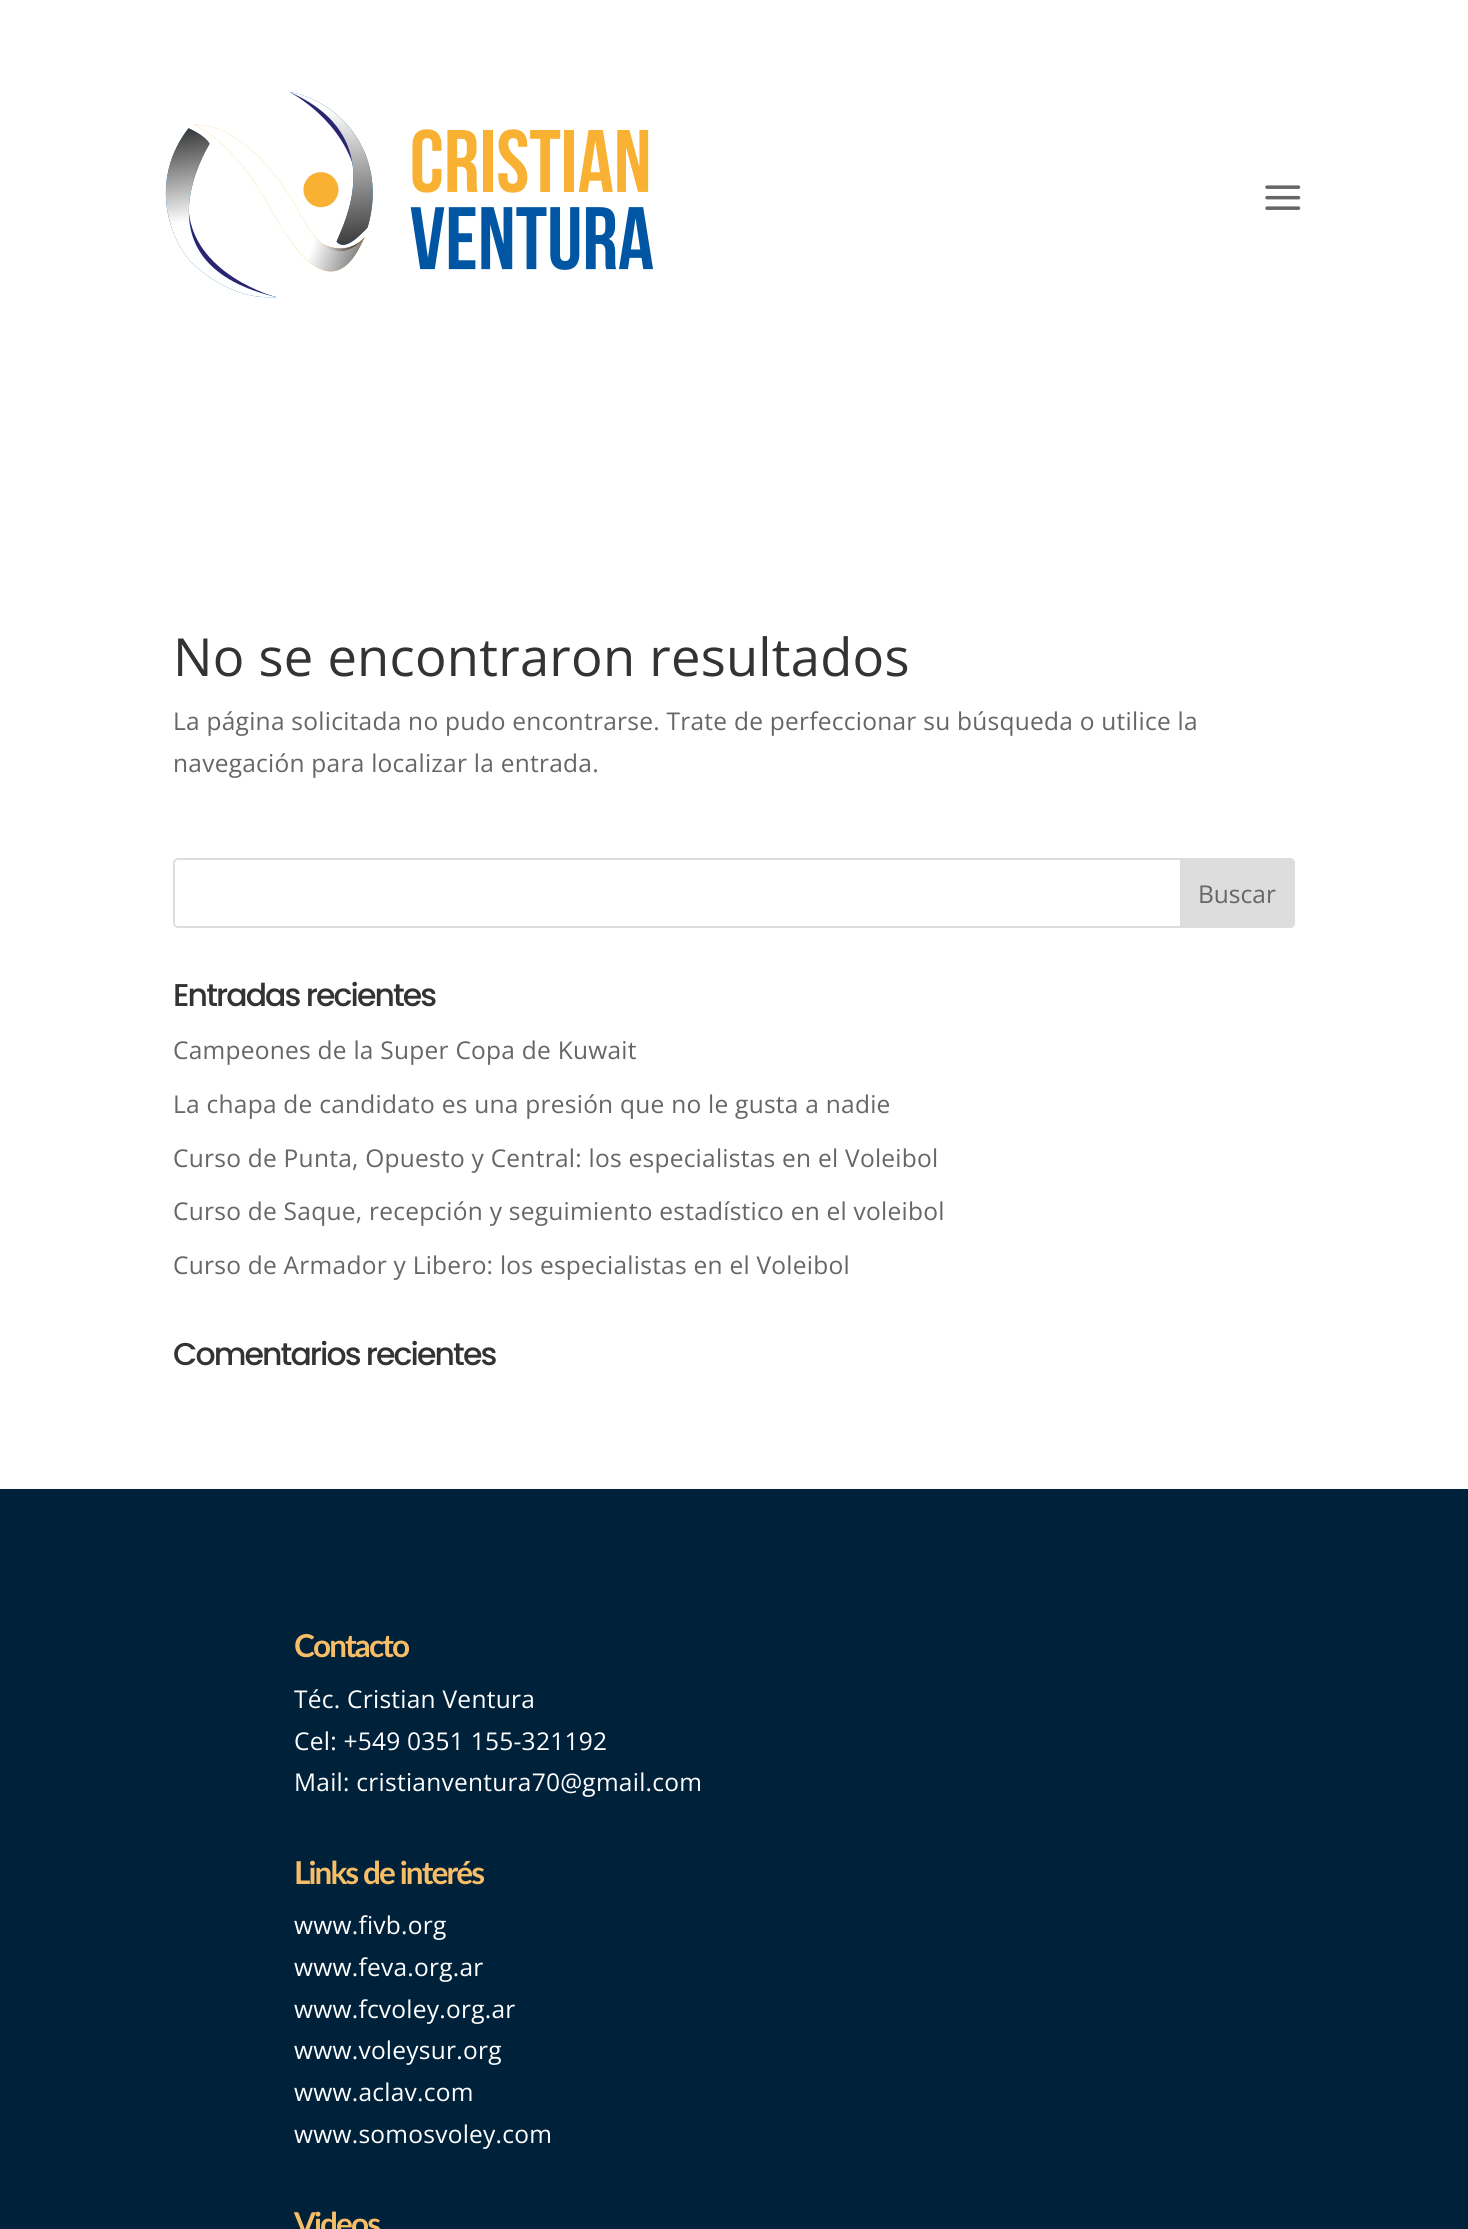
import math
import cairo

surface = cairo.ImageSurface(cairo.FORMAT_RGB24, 1468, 2229)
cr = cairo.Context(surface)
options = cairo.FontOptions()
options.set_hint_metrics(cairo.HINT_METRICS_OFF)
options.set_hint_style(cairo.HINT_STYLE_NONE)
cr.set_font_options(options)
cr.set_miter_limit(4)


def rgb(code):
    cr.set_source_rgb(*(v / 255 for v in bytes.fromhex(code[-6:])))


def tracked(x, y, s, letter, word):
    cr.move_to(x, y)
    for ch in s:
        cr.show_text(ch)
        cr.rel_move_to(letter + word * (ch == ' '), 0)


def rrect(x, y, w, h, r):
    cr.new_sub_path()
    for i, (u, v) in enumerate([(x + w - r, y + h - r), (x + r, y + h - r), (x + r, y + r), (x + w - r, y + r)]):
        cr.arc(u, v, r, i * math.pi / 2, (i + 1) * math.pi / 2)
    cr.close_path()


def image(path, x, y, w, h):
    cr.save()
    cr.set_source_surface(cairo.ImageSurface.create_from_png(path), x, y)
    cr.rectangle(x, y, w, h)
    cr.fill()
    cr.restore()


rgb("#ffffff")
cr.paint()
image("img/1.png", 165, 91, 488, 207)
image("img/2.png", 1265, 185, 36, 25)
rrect(174, 859, 1120, 68, 4)
rgb("#dddddd")
cr.stroke()
cr.new_path()
cr.move_to(1181, 859)
cr.line_to(1290, 859)
cr.curve_to(1292, 859, 1294, 861, 1294, 863)
cr.line_to(1294, 923)
cr.curve_to(1294, 925, 1292, 927, 1290, 927)
cr.line_to(1181, 927)
cr.close_path()
cr.fill_preserve()
cr.stroke()
rgb("#00213a")
cr.rectangle(0, 1489, 1468, 740)
cr.fill()
cr.select_font_face("Open Sans")
cr.set_font_size(52.5)
rgb("#333333")
tracked(173, 676, "No se encontraron resultados", 0.25, 0)
cr.set_font_size(24.5)
rgb("#666666")
tracked(173, 730, "La página solicitada no pudo encontrarse. Trate de perfeccionar su búsqueda o utilice la", 0.25, 0)
tracked(173, 772, "navegación para localizar la entrada.", 0.25, 0)
cr.move_to(1198, 903)
cr.show_text("Buscar")
cr.select_font_face("Poppins Medium")
cr.set_font_size(31.5)
rgb("#333333")
tracked(173, 1006, "Entradas recientes", -1.9, 0)
cr.select_font_face("Open Sans")
cr.set_font_size(24.5)
rgb("#666666")
for x, y, s in [
    (173, 1059, "Campeones de la Super Copa de Kuwait"),
    (173, 1113, "La chapa de candidato es una presión que no le gusta a nadie"),
    (173, 1167, "Curso de Punta, Opuesto y Central: los especialistas en el Voleibol"),
    (173, 1220, "Curso de Saque, recepción y seguimiento estadístico en el voleibol"),
    (173, 1274, "Curso de Armador y Libero: los especialistas en el Voleibol"),
]:
    tracked(x, y, s, 0.25, 0)
cr.select_font_face("Poppins Medium")
cr.set_font_size(31.5)
rgb("#333333")
tracked(173, 1365, "Comentarios recientes", -1.9, 0)
cr.select_font_face("Lato", cairo.FONT_SLANT_NORMAL, cairo.FONT_WEIGHT_BOLD)
rgb("#f7be67")
tracked(294, 1657, "Contacto", -1.9, 0)
cr.select_font_face("Open Sans")
cr.set_font_size(24.5)
rgb("#ffffff")
for x, y, s in [
    (294, 1708, "Téc. Cristian Ventura"),
    (294, 1750, "Cel: +549 0351 155-321192"),
    (294, 1791, "Mail: cristianventura70@gmail.com"),
]:
    tracked(x, y, s, 0.25, 0)
cr.select_font_face("Lato", cairo.FONT_SLANT_NORMAL, cairo.FONT_WEIGHT_BOLD)
cr.set_font_size(31.5)
rgb("#f7be67")
tracked(294, 1884, "Links de interés", -1.9, 0)
cr.select_font_face("Open Sans")
cr.set_font_size(24.5)
rgb("#ffffff")
for x, y, s in [
    (294, 1934, "www.fivb.org"),
    (294, 1976, "www.feva.org.ar"),
    (294, 2018, "www.fcvoley.org.ar"),
    (294, 2059, "www.voleysur.org"),
    (294, 2101, "www.aclav.com"),
    (294, 2143, "www.somosvoley.com"),
]:
    tracked(x, y, s, 0.25, 0)
cr.select_font_face("Lato", cairo.FONT_SLANT_NORMAL, cairo.FONT_WEIGHT_BOLD)
cr.set_font_size(31.5)
rgb("#f7be67")
tracked(294, 2235, "Videos", -1.9, 0)
surface.write_to_png("page.png")
